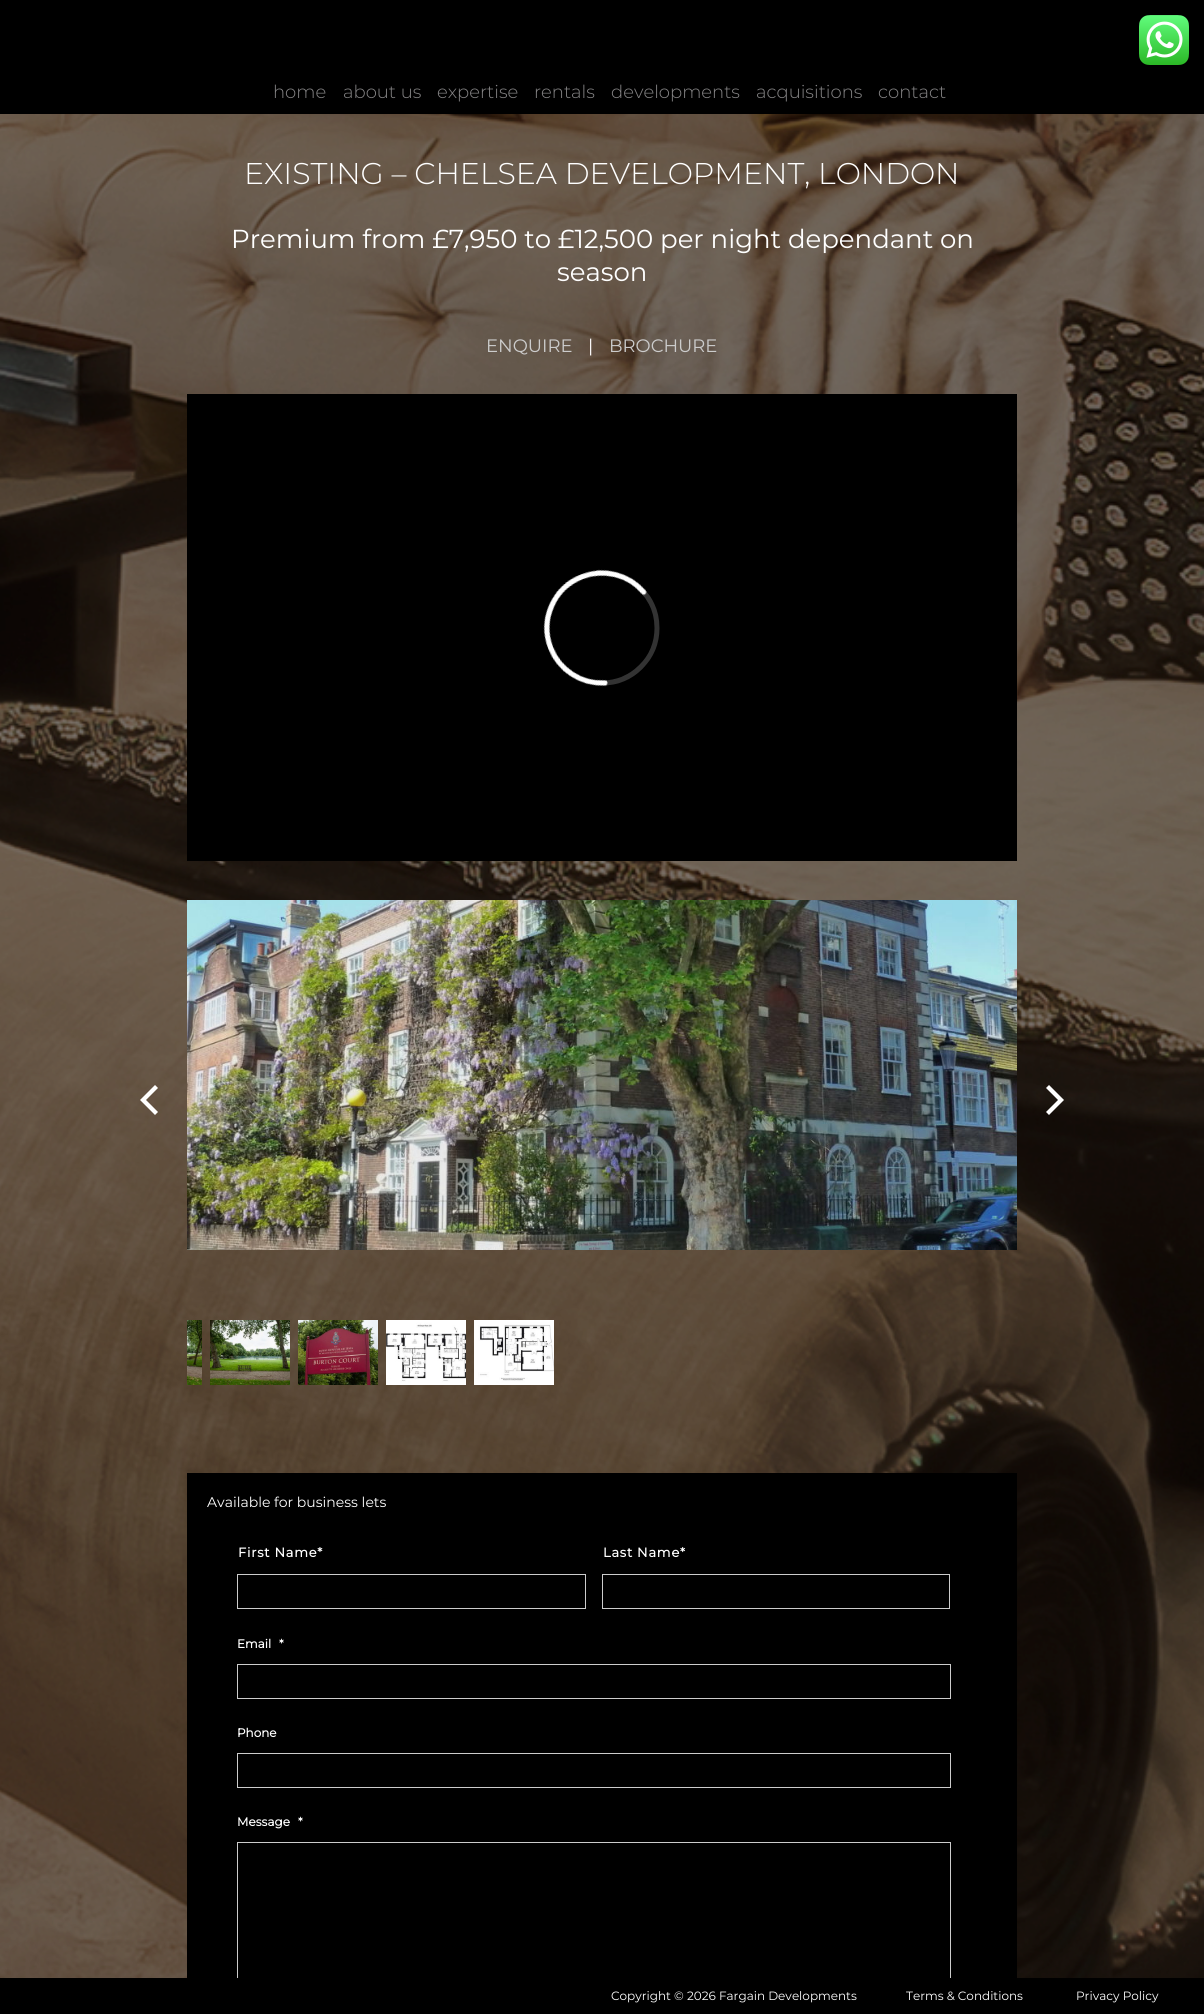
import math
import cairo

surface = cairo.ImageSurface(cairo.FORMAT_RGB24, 1204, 2014)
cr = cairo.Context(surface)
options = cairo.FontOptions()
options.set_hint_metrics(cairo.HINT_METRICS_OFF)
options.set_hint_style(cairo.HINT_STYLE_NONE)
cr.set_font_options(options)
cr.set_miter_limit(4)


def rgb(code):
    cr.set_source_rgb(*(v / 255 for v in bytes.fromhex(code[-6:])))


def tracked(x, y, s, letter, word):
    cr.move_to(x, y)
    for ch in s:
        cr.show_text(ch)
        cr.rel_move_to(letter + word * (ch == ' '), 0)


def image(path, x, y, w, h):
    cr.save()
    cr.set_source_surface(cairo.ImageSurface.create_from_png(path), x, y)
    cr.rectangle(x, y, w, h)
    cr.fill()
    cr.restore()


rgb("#ffffff")
cr.paint()
rgb("#000000")
cr.rectangle(0, 0, 1204, 114)
cr.fill()
image("img/1.png", 1139, 15, 50, 50)
image("img/2.png", 0, 114, 1204, 1864)
image("img/3.png", 187, 394, 830, 467)
rgb("#ffffff")
cr.new_path()
cr.move_to(140, 1100)
cr.line_to(155, 1115)
cr.line_to(158, 1112)
cr.line_to(146, 1100)
cr.line_to(158, 1088)
cr.line_to(155, 1085)
cr.close_path()
cr.fill()
image("img/4.png", 187, 900, 830, 350)
cr.new_path()
cr.move_to(1064, 1100)
cr.line_to(1049, 1085)
cr.line_to(1046, 1088)
cr.line_to(1058, 1100)
cr.line_to(1046, 1112)
cr.line_to(1049, 1115)
cr.close_path()
cr.fill()
image("img/5.png", 187, 1320, 15, 65)
image("img/6.png", 210, 1320, 80, 65)
image("img/7.png", 298, 1320, 80, 65)
image("img/8.png", 386, 1320, 80, 65)
image("img/9.png", 474, 1320, 80, 65)
rgb("#000000")
cr.rectangle(187, 1473, 830, 505)
cr.fill()
cr.rectangle(237.5, 1574.5, 348, 34)
rgb("#cccccc")
cr.set_line_width(1)
cr.stroke()
cr.rectangle(602.5, 1574.5, 347, 34)
cr.stroke()
cr.rectangle(237.5, 1664.5, 713, 34)
cr.stroke()
cr.rectangle(237.5, 1753.5, 713, 34)
cr.stroke()
cr.rectangle(237.5, 1842.5, 713, 159)
cr.stroke()
rgb("#000000")
cr.rectangle(0, 1978, 1204, 36)
cr.fill()
cr.select_font_face("Montserrat Light")
cr.set_font_size(18)
rgb("#868586")
for x, y, s in [
    (273, 98, "home"),
    (343, 98, "about us"),
    (437, 98, "expertise"),
    (534, 98, "rentals"),
    (611, 98, "developments"),
    (756, 98, "acquisitions"),
    (878, 98, "contact"),
]:
    cr.move_to(x, y)
    cr.show_text(s)
cr.set_font_size(30)
rgb("#ffffff")
cr.move_to(244, 184)
cr.show_text("EXISTING – CHELSEA DEVELOPMENT, LONDON")
cr.select_font_face("Montserrat")
cr.set_font_size(26)
cr.move_to(231, 248)
cr.show_text("Premium from £7,950 to £12,500 per night dependant on")
cr.move_to(557, 281)
cr.show_text("season")
cr.set_font_size(18)
rgb("#cccccc")
cr.move_to(486, 352)
cr.show_text("ENQUIRE")
rgb("#ffffff")
cr.move_to(588, 352)
cr.show_text("|")
rgb("#cccccc")
cr.move_to(609, 352)
cr.show_text("BROCHURE")
cr.set_font_size(14)
rgb("#ffffff")
cr.move_to(207, 1507)
cr.show_text("Available for business lets")
cr.select_font_face("Montserrat", cairo.FONT_SLANT_NORMAL, cairo.FONT_WEIGHT_BOLD)
cr.set_font_size(13)
tracked(238, 1557, "First Name*", 0.75, 0)
tracked(603, 1557, "Last Name*", 0.75, 0)
cr.set_font_size(12)
for x, y, s in [
    (237, 1648, "Email"),
    (279, 1648, "*"),
    (237, 1737, "Phone"),
    (237, 1826, "Message"),
    (298, 1826, "*"),
]:
    cr.move_to(x, y)
    cr.show_text(s)
cr.select_font_face("Montserrat")
for x, y, s in [
    (611, 2000, "Copyright © 2026 Fargain Developments"),
    (906, 2000, "Terms & Conditions"),
    (1076, 2000, "Privacy Policy"),
]:
    cr.move_to(x, y)
    cr.show_text(s)
surface.write_to_png("page.png")
